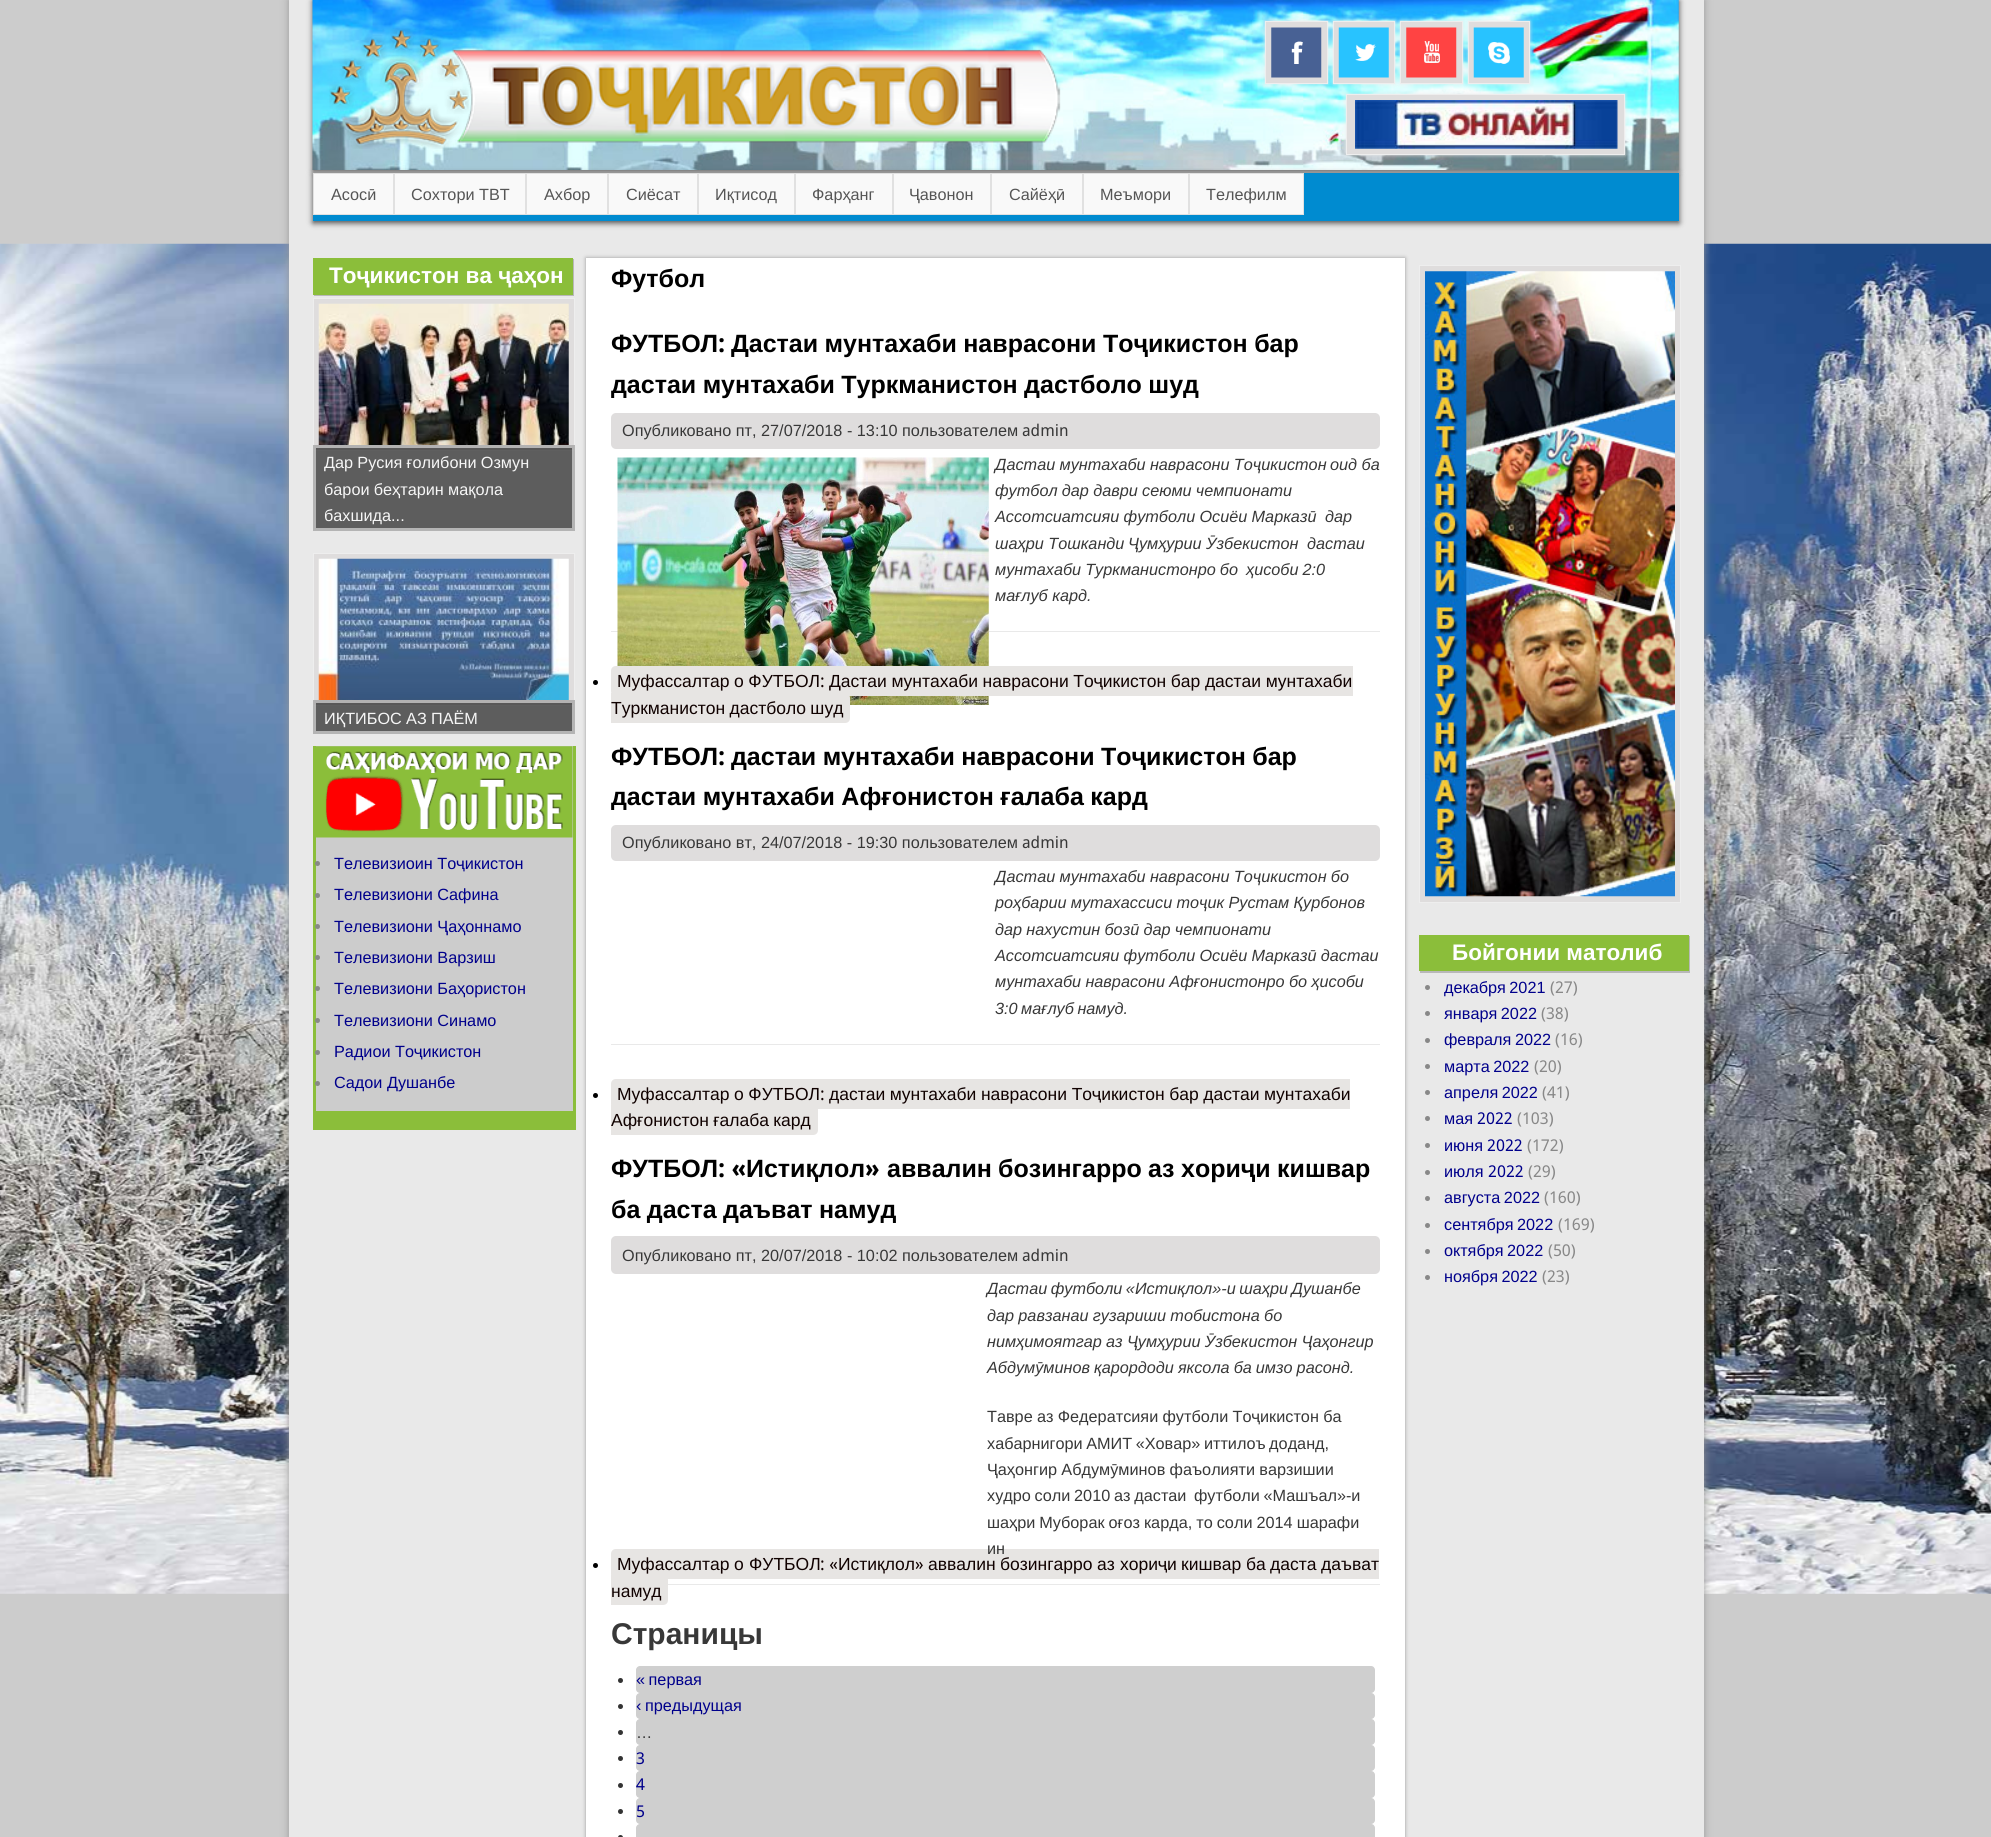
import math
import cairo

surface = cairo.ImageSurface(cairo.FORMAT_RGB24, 1991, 1837)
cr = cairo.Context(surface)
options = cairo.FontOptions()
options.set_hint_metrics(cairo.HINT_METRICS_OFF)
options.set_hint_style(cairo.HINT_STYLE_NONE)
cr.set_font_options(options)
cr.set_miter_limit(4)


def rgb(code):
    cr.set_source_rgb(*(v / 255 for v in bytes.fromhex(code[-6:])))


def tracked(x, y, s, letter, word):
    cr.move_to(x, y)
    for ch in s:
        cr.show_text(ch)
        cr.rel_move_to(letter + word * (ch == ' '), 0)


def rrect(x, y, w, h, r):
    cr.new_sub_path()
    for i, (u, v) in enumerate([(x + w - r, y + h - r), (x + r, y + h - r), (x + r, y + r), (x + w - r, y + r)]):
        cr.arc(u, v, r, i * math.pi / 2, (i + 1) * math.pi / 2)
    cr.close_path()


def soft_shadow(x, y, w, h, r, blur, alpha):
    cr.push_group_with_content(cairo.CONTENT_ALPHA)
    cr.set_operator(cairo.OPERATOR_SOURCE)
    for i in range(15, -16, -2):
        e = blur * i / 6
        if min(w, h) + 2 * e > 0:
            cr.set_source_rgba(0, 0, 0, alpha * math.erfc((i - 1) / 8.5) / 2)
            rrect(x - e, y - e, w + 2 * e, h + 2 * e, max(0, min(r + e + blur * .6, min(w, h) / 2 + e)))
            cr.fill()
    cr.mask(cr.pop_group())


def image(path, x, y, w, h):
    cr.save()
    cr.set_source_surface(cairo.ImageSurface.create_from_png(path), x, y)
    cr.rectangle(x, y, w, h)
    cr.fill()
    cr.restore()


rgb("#cccccc")
cr.paint()
image("img/1.png", 0, 243, 1991, 1351)
rgb("#999999")
soft_shadow(289, 0, 1415, 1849, 0, 4, 1)
rgb("#e9e9e9")
cr.rectangle(289, 0, 1415, 1837)
cr.fill()
rgb("#4a4a4a")
soft_shadow(313, 1, 1366, 170, 0, 3, 1)
image("img/2.png", 312, 0, 1367, 170)
image("img/3.png", 329, 28, 732, 121)
rgb("#eeeeee")
soft_shadow(1265, 21, 63, 63, 0, 2, 1)
rgb("#dfdddd")
cr.rectangle(1265.5, 21.5, 62, 62)
cr.fill_preserve()
rgb("#eeeeee")
cr.set_line_width(1)
cr.stroke()
rgb("#eeeeee")
soft_shadow(1333, 21, 62, 63, 0, 2, 1)
rgb("#dfdddd")
cr.rectangle(1333.5, 21.5, 61, 62)
cr.fill_preserve()
rgb("#eeeeee")
cr.stroke()
rgb("#eeeeee")
soft_shadow(1400, 21, 63, 63, 0, 2, 1)
rgb("#dfdddd")
cr.rectangle(1400.5, 21.5, 62, 62)
cr.fill_preserve()
rgb("#eeeeee")
cr.stroke()
rgb("#eeeeee")
soft_shadow(1468, 21, 62, 63, 0, 2, 1)
rgb("#dfdddd")
cr.rectangle(1468.5, 21.5, 61, 62)
cr.fill_preserve()
rgb("#eeeeee")
cr.stroke()
image("img/4.png", 1271, 27, 51, 51)
image("img/5.png", 1338, 27, 51, 51)
image("img/6.png", 1406, 27, 51, 51)
image("img/7.png", 1473, 27, 51, 51)
rgb("#eeeeee")
soft_shadow(1346, 94, 279, 61, 0, 2, 1)
rgb("#dfdddd")
cr.rectangle(1346.5, 94.5, 278, 60)
cr.fill_preserve()
rgb("#eeeeee")
cr.stroke()
image("img/8.png", 1355, 100, 263, 49)
rgb("#4a4a4a")
soft_shadow(313, 174, 1366, 49, 0, 3, 1)
rgb("#008bd0")
cr.rectangle(313, 173, 1366, 48)
cr.fill()
rgb("#f9f9f9")
cr.rectangle(313.5, 173.5, 80, 41)
cr.fill_preserve()
rgb("#e1e1e1")
cr.stroke()
rgb("#f9f9f9")
cr.rectangle(394.5, 173.5, 131, 41)
cr.fill_preserve()
rgb("#e1e1e1")
cr.stroke()
rgb("#f9f9f9")
cr.rectangle(526.5, 173.5, 81, 41)
cr.fill_preserve()
rgb("#e1e1e1")
cr.stroke()
rgb("#f9f9f9")
cr.rectangle(608.5, 173.5, 89, 41)
cr.fill_preserve()
rgb("#e1e1e1")
cr.stroke()
rgb("#f9f9f9")
cr.rectangle(698.5, 173.5, 96, 41)
cr.fill_preserve()
rgb("#e1e1e1")
cr.stroke()
rgb("#f9f9f9")
cr.rectangle(795.5, 173.5, 97, 41)
cr.fill_preserve()
rgb("#e1e1e1")
cr.stroke()
rgb("#f9f9f9")
cr.rectangle(893.5, 173.5, 97, 41)
cr.fill_preserve()
rgb("#e1e1e1")
cr.stroke()
rgb("#f9f9f9")
cr.rectangle(991.5, 173.5, 91, 41)
cr.fill_preserve()
rgb("#e1e1e1")
cr.stroke()
rgb("#f9f9f9")
cr.rectangle(1083.5, 173.5, 105, 41)
cr.fill_preserve()
rgb("#e1e1e1")
cr.stroke()
rgb("#f9f9f9")
cr.rectangle(1189.5, 173.5, 114, 41)
cr.fill_preserve()
rgb("#e1e1e1")
cr.stroke()
rgb("#b8b8b8")
cr.new_path()
cr.move_to(314, 295)
cr.line_to(314, 296)
cr.line_to(574, 296)
cr.line_to(574, 259)
cr.line_to(572, 259)
cr.line_to(572, 295)
cr.close_path()
cr.fill()
rgb("#8bbe3a")
cr.rectangle(313, 258, 260, 37)
cr.fill()
rgb("#dfdddd")
cr.rectangle(313.5, 298.5, 261, 152)
cr.fill_preserve()
rgb("#eeeeee")
cr.stroke()
image("img/9.png", 318, 303, 251, 142)
cr.set_source_rgba(0, 0, 0, 0.6)
cr.rectangle(313, 445, 262, 86)
cr.fill()
cr.rectangle(314.5, 446.5, 259, 83)
cr.set_source_rgba(0.933, 0.933, 0.933, 0.6)
cr.set_line_width(3)
cr.stroke()
rgb("#dfdddd")
cr.rectangle(313.5, 553.5, 261, 152)
cr.fill_preserve()
rgb("#eeeeee")
cr.set_line_width(1)
cr.stroke()
image("img/10.png", 318, 558, 251, 142)
cr.set_source_rgba(0, 0, 0, 0.6)
cr.rectangle(313, 700, 262, 34)
cr.fill()
cr.rectangle(314.5, 701.5, 259, 31)
cr.set_source_rgba(0.933, 0.933, 0.933, 0.6)
cr.set_line_width(3)
cr.stroke()
for x, y, w, h, color in [
    (316, 746, 257, 365, "#cccccc"),
    (573, 746, 3, 384, "#8bbe3a"),
    (316, 1111, 257, 19, "#8bbe3a"),
    (313, 746, 3, 384, "#8bbe3a"),
]:
    rgb(color)
    cr.rectangle(x, y, w, h)
    cr.fill()
image("img/11.png", 316, 746, 257, 92)
rgb("#888888")
cr.arc(317.5, 863.5, 2.5, 0, 2 * math.pi)
cr.fill()
cr.arc(317.5, 895.5, 2.5, 0, 2 * math.pi)
cr.fill()
cr.arc(317.5, 926.5, 2.5, 0, 2 * math.pi)
cr.fill()
cr.arc(317.5, 957.5, 2.5, 0, 2 * math.pi)
cr.fill()
cr.arc(317.5, 988.5, 2.5, 0, 2 * math.pi)
cr.fill()
cr.arc(317.5, 1020.5, 2.5, 0, 2 * math.pi)
cr.fill()
cr.arc(317.5, 1052.5, 2.5, 0, 2 * math.pi)
cr.fill()
cr.arc(317.5, 1083.5, 2.5, 0, 2 * math.pi)
cr.fill()
rgb("#999999")
soft_shadow(586, 258, 819, 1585, 0, 2, 1)
rgb("#ffffff")
cr.rectangle(586, 258, 819, 1579)
cr.fill()
rgb("#dfdddd")
rrect(611, 413, 769, 36, 5)
cr.fill()
rgb("#e9e9e9")
cr.rectangle(611, 631, 769, 1)
cr.fill()
image("img/12.png", 617, 457, 372, 248)
rgb("#000000")
cr.arc(595.5, 682.5, 2.5, 0, 2 * math.pi)
cr.fill()
rgb("#e7e5e3")
cr.new_path()
cr.move_to(616, 666)
cr.line_to(730, 666)
cr.line_to(730, 696)
cr.line_to(616, 696)
cr.curve_to(613, 696, 611, 694, 611, 691)
cr.line_to(611, 671)
cr.curve_to(611, 668, 613, 666, 616, 666)
cr.close_path()
cr.fill()
cr.rectangle(730, 666, 623, 30)
cr.fill()
cr.new_path()
cr.move_to(611, 693)
cr.line_to(845, 693)
cr.curve_to(848, 693, 850, 695, 850, 698)
cr.line_to(850, 718)
cr.curve_to(850, 721, 848, 723, 845, 723)
cr.line_to(611, 723)
cr.close_path()
cr.fill()
rgb("#dfdddd")
rrect(611, 825, 769, 36, 5)
cr.fill()
rgb("#e9e9e9")
cr.rectangle(611, 1044, 769, 1)
cr.fill()
rgb("#000000")
cr.arc(595.5, 1095.5, 2.5, 0, 2 * math.pi)
cr.fill()
rgb("#e7e5e3")
cr.new_path()
cr.move_to(616, 1079)
cr.line_to(730, 1079)
cr.line_to(730, 1109)
cr.line_to(616, 1109)
cr.curve_to(613, 1109, 611, 1107, 611, 1104)
cr.line_to(611, 1084)
cr.curve_to(611, 1081, 613, 1079, 616, 1079)
cr.close_path()
cr.fill()
cr.rectangle(730, 1079, 620, 30)
cr.fill()
cr.new_path()
cr.move_to(611, 1105)
cr.line_to(813, 1105)
cr.curve_to(816, 1105, 818, 1107, 818, 1110)
cr.line_to(818, 1130)
cr.curve_to(818, 1133, 816, 1135, 813, 1135)
cr.line_to(611, 1135)
cr.close_path()
cr.fill()
rgb("#dfdddd")
rrect(611, 1236, 769, 38, 5)
cr.fill()
rgb("#e9e9e9")
cr.rectangle(668, 1584, 712, 1)
cr.fill()
rgb("#000000")
cr.arc(595.5, 1565.5, 2.5, 0, 2 * math.pi)
cr.fill()
rgb("#e7e5e3")
cr.new_path()
cr.move_to(616, 1549)
cr.line_to(730, 1549)
cr.line_to(730, 1579)
cr.line_to(616, 1579)
cr.curve_to(613, 1579, 611, 1577, 611, 1574)
cr.line_to(611, 1554)
cr.curve_to(611, 1551, 613, 1549, 616, 1549)
cr.close_path()
cr.fill()
cr.rectangle(730, 1549, 649, 30)
cr.fill()
cr.new_path()
cr.move_to(611, 1575)
cr.line_to(663, 1575)
cr.curve_to(666, 1575, 668, 1577, 668, 1580)
cr.line_to(668, 1600)
cr.curve_to(668, 1603, 666, 1605, 663, 1605)
cr.line_to(611, 1605)
cr.close_path()
cr.fill()
rgb("#cfcfcf")
rrect(636, 1666, 739, 27, 4)
cr.fill()
rgb("#333333")
cr.arc(620.5, 1680.5, 2.5, 0, 2 * math.pi)
cr.fill()
rgb("#cfcfcf")
rrect(636, 1693, 739, 26, 4)
cr.fill()
rgb("#333333")
cr.arc(620.5, 1706.5, 2.5, 0, 2 * math.pi)
cr.fill()
rgb("#cfcfcf")
rrect(636, 1719, 739, 26, 4)
cr.fill()
rgb("#333333")
cr.arc(620.5, 1732.5, 2.5, 0, 2 * math.pi)
cr.fill()
rgb("#cfcfcf")
rrect(636, 1745, 739, 26, 4)
cr.fill()
rgb("#333333")
cr.arc(620.5, 1758.5, 2.5, 0, 2 * math.pi)
cr.fill()
rgb("#cfcfcf")
rrect(636, 1771, 739, 27, 4)
cr.fill()
rgb("#333333")
cr.arc(620.5, 1785.5, 2.5, 0, 2 * math.pi)
cr.fill()
rgb("#cfcfcf")
rrect(636, 1798, 739, 26, 4)
cr.fill()
rgb("#333333")
cr.arc(620.5, 1811.5, 2.5, 0, 2 * math.pi)
cr.fill()
rgb("#cfcfcf")
rrect(636, 1824, 739, 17, 4)
cr.fill()
rgb("#333333")
cr.arc(620.5, 1837.5, 2.5, 0, 2 * math.pi)
cr.fill()
rgb("#dfdddd")
cr.rectangle(1419.5, 265.5, 261, 637)
cr.fill_preserve()
rgb("#eeeeee")
cr.set_line_width(1)
cr.stroke()
image("img/13.png", 1425, 271, 250, 626)
rgb("#b8b8b8")
cr.new_path()
cr.move_to(1420, 971)
cr.line_to(1420, 973)
cr.line_to(1690, 973)
cr.line_to(1690, 936)
cr.line_to(1689, 936)
cr.line_to(1689, 971)
cr.close_path()
cr.fill()
rgb("#8bbe3a")
cr.rectangle(1419, 935, 270, 36)
cr.fill()
rgb("#888888")
cr.arc(1427.5, 987.5, 2.5, 0, 2 * math.pi)
cr.fill()
cr.arc(1427.5, 1013.5, 2.5, 0, 2 * math.pi)
cr.fill()
cr.arc(1427.5, 1040.5, 2.5, 0, 2 * math.pi)
cr.fill()
cr.arc(1427.5, 1066.5, 2.5, 0, 2 * math.pi)
cr.fill()
cr.arc(1427.5, 1092.5, 2.5, 0, 2 * math.pi)
cr.fill()
cr.arc(1427.5, 1118.5, 2.5, 0, 2 * math.pi)
cr.fill()
cr.arc(1427.5, 1145.5, 2.5, 0, 2 * math.pi)
cr.fill()
cr.arc(1427.5, 1172.5, 2.5, 0, 2 * math.pi)
cr.fill()
cr.arc(1427.5, 1198.5, 2.5, 0, 2 * math.pi)
cr.fill()
cr.arc(1427.5, 1225.5, 2.5, 0, 2 * math.pi)
cr.fill()
cr.arc(1427.5, 1251.5, 2.5, 0, 2 * math.pi)
cr.fill()
cr.arc(1427.5, 1277.5, 2.5, 0, 2 * math.pi)
cr.fill()
cr.select_font_face("Liberation Sans")
cr.set_font_size(16.25)
rgb("#555555")
for x, y, s in [
    (331, 200, "Асосӣ"),
    (411, 200, "Сохтори ТВТ"),
    (544, 200, "Ахбор"),
    (626, 200, "Сиёсат"),
    (715, 200, "Иқтисод"),
    (812, 200, "Фарҳанг"),
    (909, 200, "Ҷавонон"),
    (1009, 200, "Сайёҳӣ"),
    (1100, 200, "Меъмори"),
    (1206, 200, "Телефилм"),
]:
    cr.move_to(x, y)
    cr.show_text(s)
cr.select_font_face("Liberation Sans", cairo.FONT_SLANT_NORMAL, cairo.FONT_WEIGHT_BOLD)
cr.set_font_size(22.5)
rgb("#ffffff")
cr.move_to(329, 283)
cr.show_text("Тоҷикистон ва ҷаҳон")
cr.select_font_face("Liberation Sans")
cr.set_font_size(16.25)
rgb("#f6f6f6")
tracked(324, 468, "Дар Русия ғолибони Озмун", 0, -0.25)
tracked(324, 495, "барои беҳтарин мақола", 0, -0.25)
cr.move_to(324, 521)
cr.show_text("бахшида...")
tracked(324, 724, "ИҚТИБОС АЗ ПАЁМ", 0, -0.25)
rgb("#00008b")
for x, y, s in [
    (334, 869, "Телевизиоин Тоҷикистон"),
    (334, 900, "Телевизиони Сафина"),
    (334, 932, "Телевизиони Ҷаҳоннамо"),
    (334, 963, "Телевизиони Варзиш"),
    (334, 994, "Телевизиони Баҳористон"),
    (334, 1026, "Телевизиони Синамо"),
    (334, 1057, "Радиои Тоҷикистон"),
    (334, 1088, "Садои Душанбе"),
]:
    cr.move_to(x, y)
    cr.show_text(s)
cr.select_font_face("Liberation Sans", cairo.FONT_SLANT_NORMAL, cairo.FONT_WEIGHT_BOLD)
cr.set_font_size(25)
rgb("#000000")
cr.move_to(611, 287)
cr.show_text("Футбол")
cr.move_to(611, 352)
cr.show_text("ФУТБОЛ")
cr.select_font_face("Droid Sans", cairo.FONT_SLANT_NORMAL, cairo.FONT_WEIGHT_BOLD)
cr.move_to(718, 352)
cr.show_text(":")
cr.select_font_face("Liberation Sans", cairo.FONT_SLANT_NORMAL, cairo.FONT_WEIGHT_BOLD)
tracked(731, 352, "Дастаи мунтахаби наврасони Тоҷикистон бар", 0, -0.5)
tracked(611, 393, "дастаи мунтахаби Туркманистон дастболо шуд", 0, -0.5)
cr.select_font_face("Liberation Sans")
cr.set_font_size(16.25)
rgb("#383838")
cr.move_to(622, 436)
cr.show_text("Опубликовано пт, 27/07/2018 - 13:10 пользователем")
cr.select_font_face("Droid Sans")
cr.move_to(1022, 436)
cr.show_text("admin")
cr.select_font_face("Liberation Sans", cairo.FONT_SLANT_ITALIC)
tracked(995, 470, "Дастаи мунтахаби наврасони Тоҷикистон", 0, -0.25)
cr.move_to(1330, 470)
cr.show_text("оид ба")
tracked(995, 496, "футбол дар даври сеюми чемпионати", 0, -0.25)
tracked(995, 522, "Ассотсиатсияи футболи Осиёи Марказӣ  дар", 0, -0.25)
for x, y, s in [
    (995, 549, "шаҳри Тошканди"),
    (1128, 549, "Ҷумҳурии Ӯзбекистон"),
    (1307, 549, "дастаи"),
]:
    cr.move_to(x, y)
    cr.show_text(s)
tracked(995, 575, "мунтахаби Туркманистонро бо  ҳисоби 2:0", 0, -0.5)
cr.move_to(995, 601)
cr.show_text("мағлуб кард.")
cr.select_font_face("Liberation Sans")
cr.set_font_size(17.5)
rgb("#100100")
cr.move_to(617, 687)
cr.show_text("Муфассалтар")
tracked(734, 687, "о ФУТБОЛ", 0, -0.25)
cr.select_font_face("Droid Sans")
cr.move_to(820, 687)
cr.show_text(":")
cr.select_font_face("Liberation Sans")
tracked(829, 687, "Дастаи мунтахаби наврасони Тоҷикистон бар дастаи мунтахаби", 0, -0.25)
tracked(611, 714, "Туркманистон дастболо шуд", 0, -0.5)
cr.select_font_face("Liberation Sans", cairo.FONT_SLANT_NORMAL, cairo.FONT_WEIGHT_BOLD)
cr.set_font_size(25)
rgb("#000000")
cr.move_to(611, 765)
cr.show_text("ФУТБОЛ")
cr.select_font_face("Droid Sans", cairo.FONT_SLANT_NORMAL, cairo.FONT_WEIGHT_BOLD)
cr.move_to(718, 765)
cr.show_text(":")
cr.select_font_face("Liberation Sans", cairo.FONT_SLANT_NORMAL, cairo.FONT_WEIGHT_BOLD)
tracked(731, 765, "дастаи мунтахаби наврасони Тоҷикистон бар", 0, -0.5)
tracked(611, 805, "дастаи мунтахаби Афғонистон ғалаба кард", 0, -0.5)
cr.select_font_face("Liberation Sans")
cr.set_font_size(16.25)
rgb("#383838")
cr.move_to(622, 848)
cr.show_text("Опубликовано вт, 24/07/2018 - 19:30 пользователем")
cr.select_font_face("Droid Sans")
cr.move_to(1022, 848)
cr.show_text("admin")
cr.select_font_face("Liberation Sans", cairo.FONT_SLANT_ITALIC)
for x, y, s in [
    (995, 882, "Дастаи мунтахаби наврасони Тоҷикистон бо"),
    (995, 908, "роҳбарии мутахассиси тоҷик Рустам Қурбонов"),
    (995, 935, "дар нахустин бозӣ дар чемпионати"),
    (995, 961, "Ассотсиатсияи футболи Осиёи Марказӣ дастаи"),
    (995, 987, "мунтахаби наврасони Афғонистонро бо ҳисоби"),
]:
    tracked(x, y, s, 0, -0.25)
tracked(995, 1014, "3:0 мағлуб намуд.", 0, -1)
cr.select_font_face("Liberation Sans")
cr.set_font_size(17.5)
rgb("#100100")
cr.move_to(617, 1100)
cr.show_text("Муфассалтар")
tracked(734, 1100, "о ФУТБОЛ", 0, -0.25)
cr.select_font_face("Droid Sans")
cr.move_to(820, 1100)
cr.show_text(":")
cr.select_font_face("Liberation Sans")
tracked(829, 1100, "дастаи мунтахаби наврасони Тоҷикистон бар дастаи мунтахаби", 0, -0.25)
tracked(611, 1126, "Афғонистон ғалаба кард", 0, -0.5)
cr.select_font_face("Liberation Sans", cairo.FONT_SLANT_NORMAL, cairo.FONT_WEIGHT_BOLD)
cr.set_font_size(25)
rgb("#000000")
cr.move_to(611, 1177)
cr.show_text("ФУТБОЛ")
cr.select_font_face("Droid Sans", cairo.FONT_SLANT_NORMAL, cairo.FONT_WEIGHT_BOLD)
cr.move_to(718, 1177)
cr.show_text(": «")
cr.select_font_face("Liberation Sans", cairo.FONT_SLANT_NORMAL, cairo.FONT_WEIGHT_BOLD)
cr.move_to(746, 1177)
cr.show_text("Истиқлол")
cr.select_font_face("Droid Sans", cairo.FONT_SLANT_NORMAL, cairo.FONT_WEIGHT_BOLD)
cr.move_to(865, 1177)
cr.show_text("»")
cr.select_font_face("Liberation Sans", cairo.FONT_SLANT_NORMAL, cairo.FONT_WEIGHT_BOLD)
for x, y, s in [
    (887, 1177, "аввалин"),
    (998, 1177, "бозингарро"),
    (1148, 1177, "аз"),
    (1181, 1177, "хориҷи"),
    (1277, 1177, "кишвар"),
]:
    cr.move_to(x, y)
    cr.show_text(s)
tracked(611, 1218, "ба даста даъват намуд", 0, -0.5)
cr.select_font_face("Liberation Sans")
cr.set_font_size(16.25)
rgb("#383838")
cr.move_to(622, 1261)
cr.show_text("Опубликовано пт, 20/07/2018 - 10:02 пользователем")
cr.select_font_face("Droid Sans")
cr.move_to(1022, 1261)
cr.show_text("admin")
cr.select_font_face("Liberation Sans", cairo.FONT_SLANT_ITALIC)
tracked(987, 1294, "Дастаи футболи «Истиқлол»-и шаҳри Душанбе", 0, -1)
tracked(987, 1321, "дар равзанаи гузариши тобистона бо", 0, -0.25)
tracked(987, 1347, "нимҳимоятгар аз Ҷумҳурии Ӯзбекистон Ҷаҳонгир", 0, -0.25)
tracked(987, 1373, "Абдумӯминов қарордоди яксола ба имзо расонд.", 0, -0.5)
cr.select_font_face("Liberation Sans")
tracked(987, 1422, "Тавре аз Федератсияи футболи Тоҷикистон ба", 0, -0.25)
tracked(987, 1449, "хабарнигори АМИТ «Ховар» иттилоъ доданд,", 0, -1)
tracked(987, 1475, "Ҷаҳонгир Абдумӯминов фаъолияти варзишии", 0, -0.25)
tracked(987, 1501, "худро соли 2010 аз дастаи  футболи «Машъал»-и", 0, -0.75)
tracked(987, 1528, "шаҳри Муборак оғоз карда, то соли 2014 шарафи", 0, -0.5)
cr.move_to(987, 1554)
cr.show_text("ин")
cr.set_font_size(17.5)
rgb("#100100")
for x, y, s in [
    (617, 1570, "Муфассалтар"),
    (734, 1570, "о"),
    (749, 1570, "ФУТБОЛ"),
]:
    cr.move_to(x, y)
    cr.show_text(s)
cr.select_font_face("Droid Sans")
cr.move_to(820, 1570)
cr.show_text(": «")
cr.select_font_face("Liberation Sans")
cr.move_to(838, 1570)
cr.show_text("Истиқлол")
cr.select_font_face("Droid Sans")
cr.move_to(915, 1570)
cr.show_text("»")
cr.select_font_face("Liberation Sans")
for x, y, s in [
    (928, 1570, "аввалин"),
    (1000, 1570, "бозингарро"),
    (1097, 1570, "аз"),
    (1120, 1570, "хориҷи"),
    (1181, 1570, "кишвар"),
    (1246, 1570, "ба"),
    (1270, 1570, "даста"),
    (1321, 1570, "даъват"),
    (611, 1597, "намуд"),
]:
    cr.move_to(x, y)
    cr.show_text(s)
cr.select_font_face("Liberation Sans", cairo.FONT_SLANT_NORMAL, cairo.FONT_WEIGHT_BOLD)
cr.set_font_size(30)
rgb("#383838")
cr.move_to(611, 1644)
cr.show_text("Страницы")
cr.select_font_face("Liberation Sans")
cr.set_font_size(16.25)
rgb("#00008b")
tracked(636, 1685, "« первая", 0, -1)
tracked(636, 1711, "‹ предыдущая", 0, -1)
rgb("#383838")
cr.move_to(636, 1738)
cr.show_text("…")
cr.select_font_face("Droid Sans")
rgb("#00008b")
for x, y, s in [
    (636, 1764, "3"),
    (636, 1790, "4"),
    (636, 1817, "5"),
]:
    cr.move_to(x, y)
    cr.show_text(s)
cr.select_font_face("Liberation Sans", cairo.FONT_SLANT_NORMAL, cairo.FONT_WEIGHT_BOLD)
cr.set_font_size(22.5)
rgb("#ffffff")
cr.move_to(1452, 960)
cr.show_text("Бойгонии матолиб")
cr.select_font_face("Liberation Sans")
cr.set_font_size(16.25)
rgb("#00008b")
tracked(1444, 993, "декабря 2021", 0, -1)
cr.select_font_face("Droid Sans")
rgb("#888888")
cr.move_to(1550, 993)
cr.show_text("(27)")
cr.select_font_face("Liberation Sans")
rgb("#00008b")
tracked(1444, 1019, "января 2022", 0, -1)
cr.select_font_face("Droid Sans")
rgb("#888888")
cr.move_to(1541, 1019)
cr.show_text("(38)")
cr.select_font_face("Liberation Sans")
rgb("#00008b")
tracked(1444, 1045, "февраля 2022", 0, -1)
cr.select_font_face("Droid Sans")
rgb("#888888")
cr.move_to(1555, 1045)
cr.show_text("(16)")
cr.select_font_face("Liberation Sans")
rgb("#00008b")
tracked(1444, 1072, "марта 2022", 0, -1)
cr.select_font_face("Droid Sans")
rgb("#888888")
cr.move_to(1534, 1072)
cr.show_text("(20)")
cr.select_font_face("Liberation Sans")
rgb("#00008b")
tracked(1444, 1098, "апреля 2022", 0, -1)
cr.select_font_face("Droid Sans")
rgb("#888888")
cr.move_to(1542, 1098)
cr.show_text("(41)")
cr.select_font_face("Liberation Sans")
rgb("#00008b")
cr.move_to(1444, 1124)
cr.show_text("мая")
cr.select_font_face("Droid Sans")
cr.move_to(1477, 1124)
cr.show_text("2022")
rgb("#888888")
cr.move_to(1517, 1124)
cr.show_text("(103)")
cr.select_font_face("Liberation Sans")
rgb("#00008b")
cr.move_to(1444, 1151)
cr.show_text("июня")
cr.select_font_face("Droid Sans")
cr.move_to(1487, 1151)
cr.show_text("2022")
rgb("#888888")
cr.move_to(1527, 1151)
cr.show_text("(172)")
cr.select_font_face("Liberation Sans")
rgb("#00008b")
cr.move_to(1444, 1177)
cr.show_text("июля")
cr.select_font_face("Droid Sans")
cr.move_to(1488, 1177)
cr.show_text("2022")
rgb("#888888")
cr.move_to(1528, 1177)
cr.show_text("(29)")
cr.select_font_face("Liberation Sans")
rgb("#00008b")
tracked(1444, 1203, "августа 2022", 0, -1)
cr.select_font_face("Droid Sans")
rgb("#888888")
cr.move_to(1544, 1203)
cr.show_text("(160)")
cr.select_font_face("Liberation Sans")
rgb("#00008b")
tracked(1444, 1230, "сентября 2022", 0, -1)
cr.select_font_face("Droid Sans")
rgb("#888888")
cr.move_to(1558, 1230)
cr.show_text("(169)")
cr.select_font_face("Liberation Sans")
rgb("#00008b")
tracked(1444, 1256, "октября 2022", 0, -1)
cr.select_font_face("Droid Sans")
rgb("#888888")
cr.move_to(1548, 1256)
cr.show_text("(50)")
cr.select_font_face("Liberation Sans")
rgb("#00008b")
tracked(1444, 1282, "ноября 2022", 0, -1)
cr.select_font_face("Droid Sans")
rgb("#888888")
cr.move_to(1542, 1282)
cr.show_text("(23)")
surface.write_to_png("page.png")
